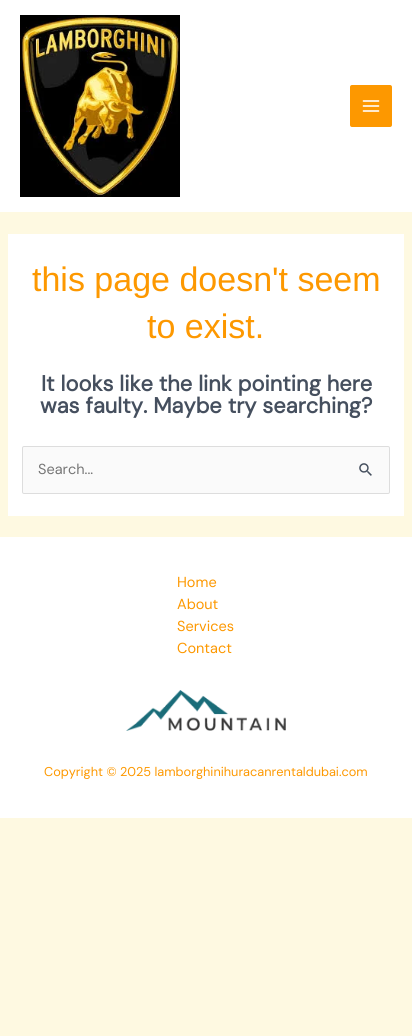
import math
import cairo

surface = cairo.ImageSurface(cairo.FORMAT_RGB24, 412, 1036)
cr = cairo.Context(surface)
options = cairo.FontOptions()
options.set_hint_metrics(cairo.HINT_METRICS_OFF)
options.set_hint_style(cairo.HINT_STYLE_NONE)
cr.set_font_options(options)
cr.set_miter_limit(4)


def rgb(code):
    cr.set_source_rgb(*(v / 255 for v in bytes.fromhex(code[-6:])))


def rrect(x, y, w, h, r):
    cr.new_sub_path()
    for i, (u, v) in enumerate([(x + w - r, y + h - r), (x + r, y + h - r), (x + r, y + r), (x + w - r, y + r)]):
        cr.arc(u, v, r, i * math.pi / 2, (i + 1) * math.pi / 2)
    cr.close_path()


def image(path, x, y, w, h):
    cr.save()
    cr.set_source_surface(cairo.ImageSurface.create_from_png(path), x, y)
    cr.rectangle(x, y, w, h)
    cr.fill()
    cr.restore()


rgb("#fef9e1")
cr.paint()
rgb("#ffffff")
cr.rectangle(0, 0, 412, 212)
cr.fill()
image("img/1.png", 20, 15, 160, 182)
rgb("#fd9800")
rrect(350, 85, 42, 42, 2)
cr.fill()
image("img/2.png", 362, 100, 18, 12)
rgb("#ffffff")
cr.rectangle(8, 234, 396, 282)
cr.fill()
rgb("#fafafa")
rrect(22.5, 446.5, 367, 47, 1.5)
cr.fill_preserve()
rgb("#dddddd")
cr.set_line_width(1)
cr.stroke()
image("img/3.png", 359, 463, 13, 13)
rgb("#ffffff")
cr.rectangle(0, 537, 412, 281)
cr.fill()
image("img/4.png", 126, 690, 160, 41)
cr.select_font_face("Liberation Sans")
cr.set_font_size(34)
rgb("#fd9800")
cr.move_to(32, 291)
cr.show_text("this page doesn't seem")
cr.move_to(147, 338)
cr.show_text("to exist.")
cr.select_font_face("DM Sans", cairo.FONT_SLANT_NORMAL, cairo.FONT_WEIGHT_BOLD)
cr.set_font_size(21.9)
rgb("#454f5e")
cr.move_to(41, 391)
cr.show_text("It looks like the link pointing here")
cr.move_to(40, 413)
cr.show_text("was faulty. Maybe try searching?")
cr.select_font_face("DM Sans")
cr.set_font_size(14.5)
rgb("#757575")
cr.move_to(38, 474)
cr.show_text("Search...")
rgb("#fd9800")
for x, y, s in [
    (177, 587, "Home"),
    (177, 609, "About"),
    (177, 631, "Services"),
    (177, 653, "Contact"),
]:
    cr.move_to(x, y)
    cr.show_text(s)
cr.set_font_size(12.75)
cr.move_to(44, 776)
cr.show_text("Copyright © 2025 lamborghinihuracanrentaldubai.com")
surface.write_to_png("page.png")
